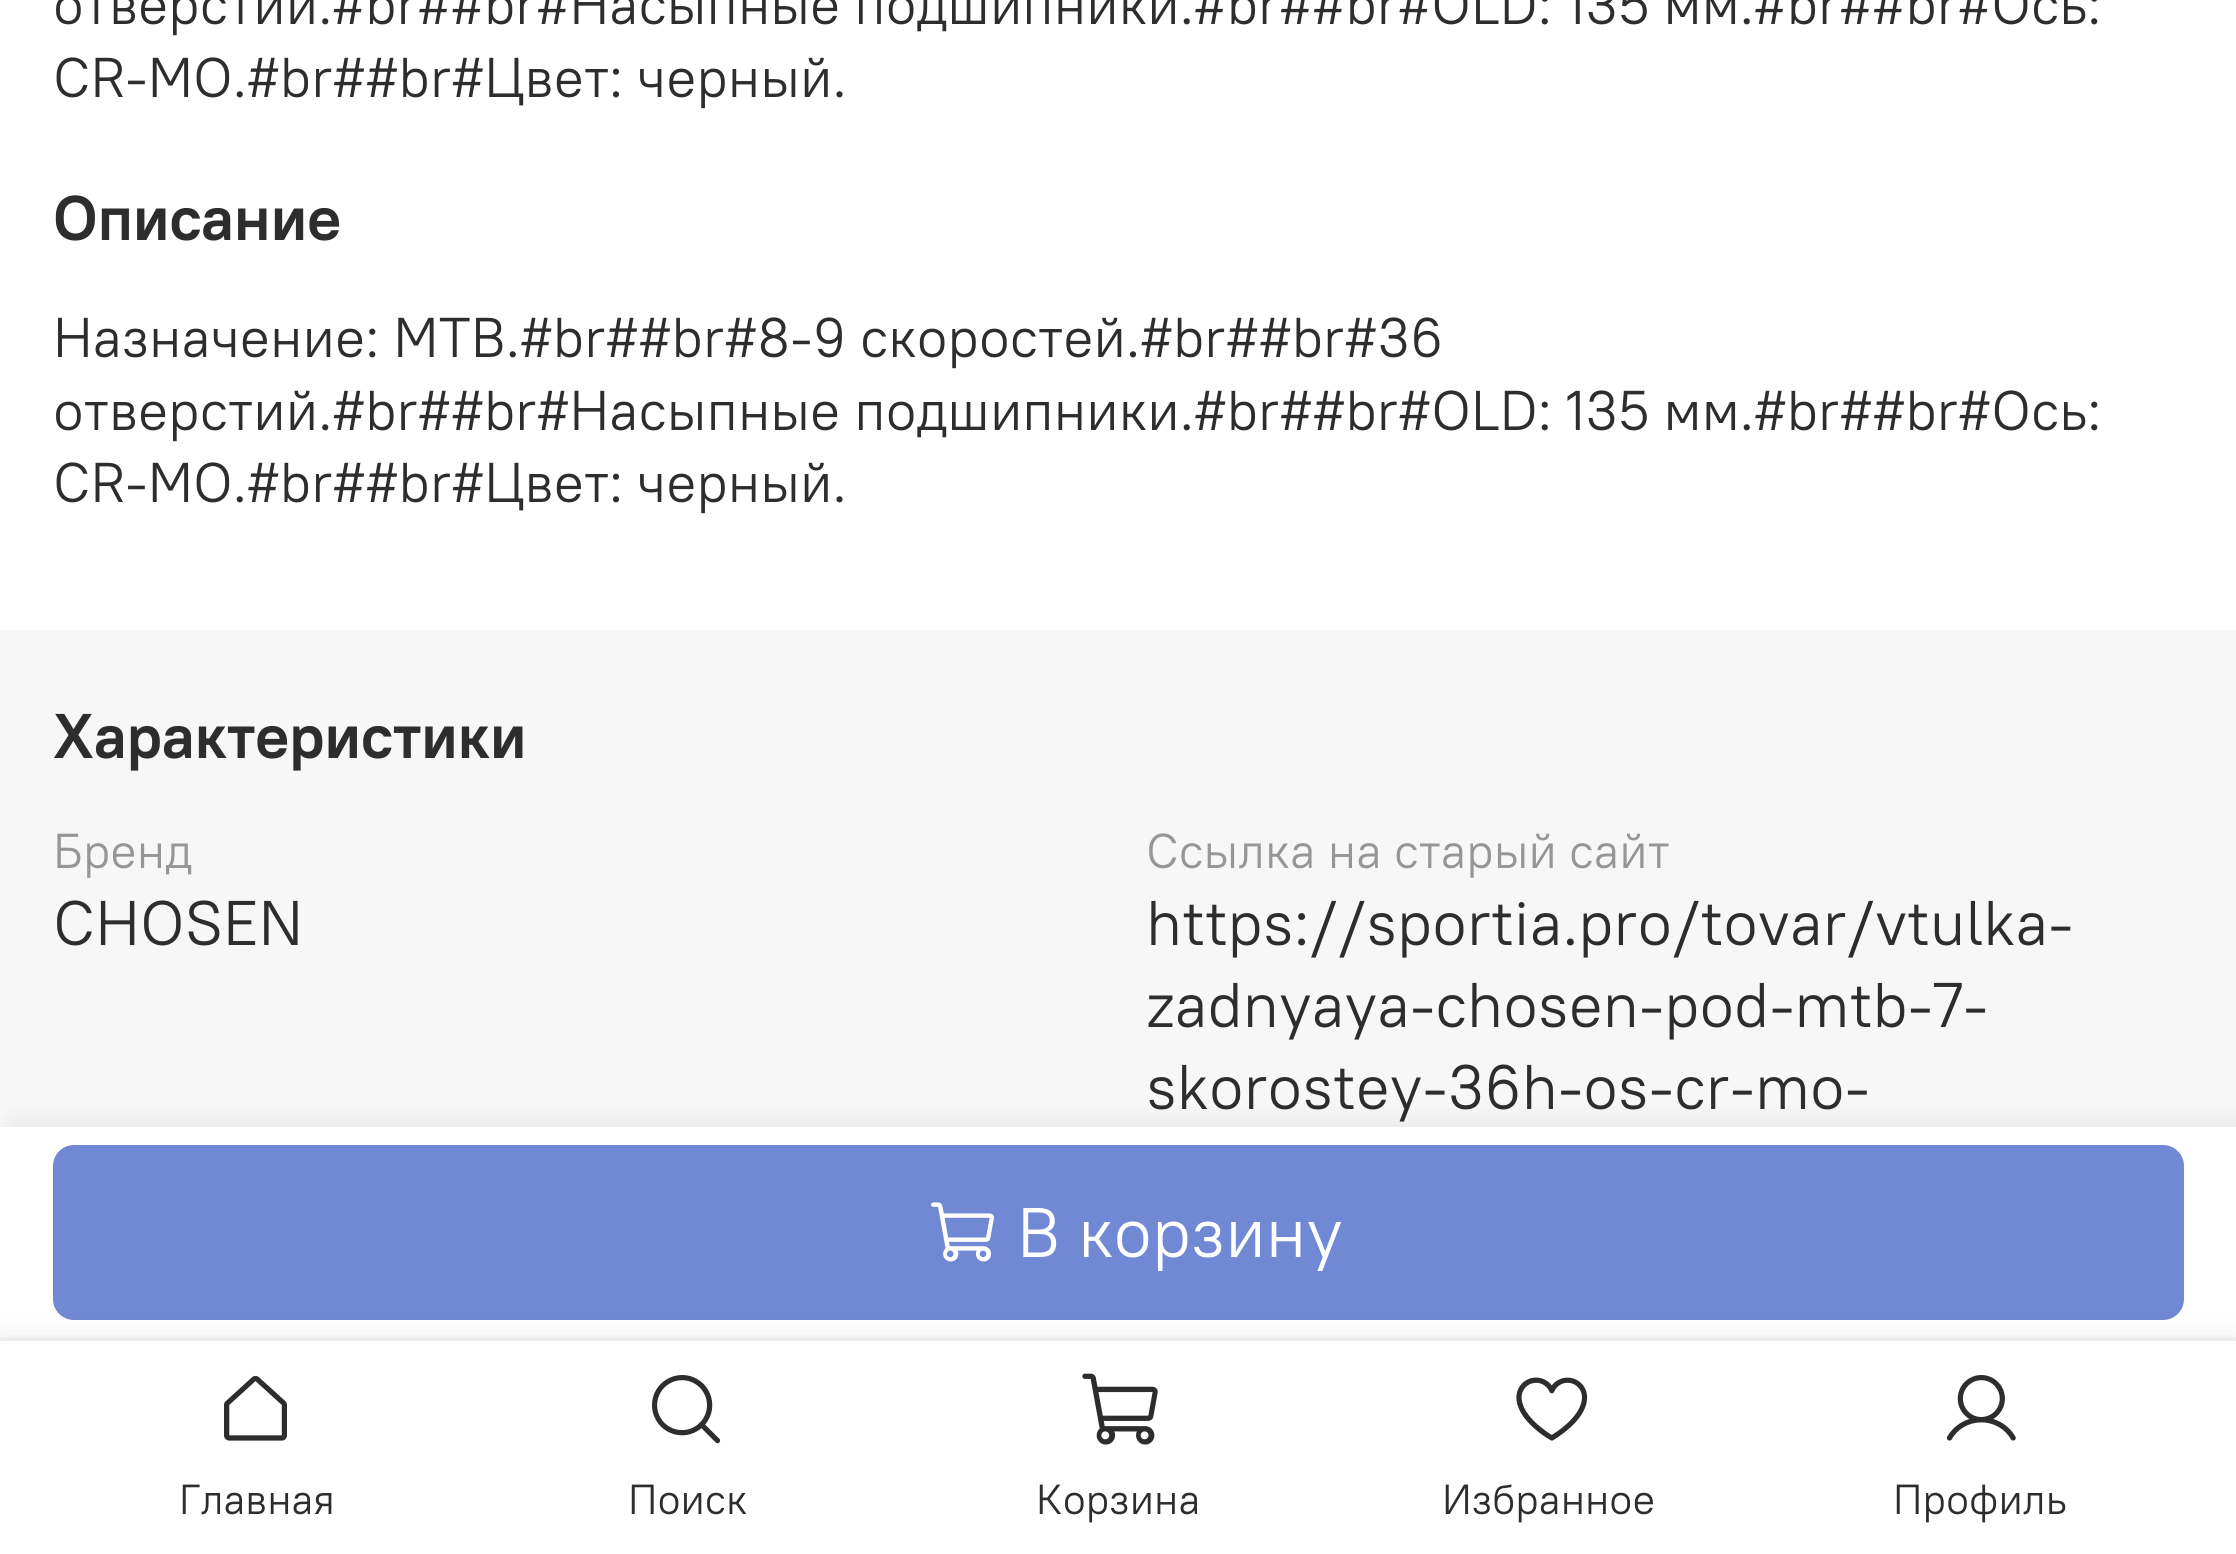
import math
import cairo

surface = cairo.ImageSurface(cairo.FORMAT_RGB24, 2236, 1554)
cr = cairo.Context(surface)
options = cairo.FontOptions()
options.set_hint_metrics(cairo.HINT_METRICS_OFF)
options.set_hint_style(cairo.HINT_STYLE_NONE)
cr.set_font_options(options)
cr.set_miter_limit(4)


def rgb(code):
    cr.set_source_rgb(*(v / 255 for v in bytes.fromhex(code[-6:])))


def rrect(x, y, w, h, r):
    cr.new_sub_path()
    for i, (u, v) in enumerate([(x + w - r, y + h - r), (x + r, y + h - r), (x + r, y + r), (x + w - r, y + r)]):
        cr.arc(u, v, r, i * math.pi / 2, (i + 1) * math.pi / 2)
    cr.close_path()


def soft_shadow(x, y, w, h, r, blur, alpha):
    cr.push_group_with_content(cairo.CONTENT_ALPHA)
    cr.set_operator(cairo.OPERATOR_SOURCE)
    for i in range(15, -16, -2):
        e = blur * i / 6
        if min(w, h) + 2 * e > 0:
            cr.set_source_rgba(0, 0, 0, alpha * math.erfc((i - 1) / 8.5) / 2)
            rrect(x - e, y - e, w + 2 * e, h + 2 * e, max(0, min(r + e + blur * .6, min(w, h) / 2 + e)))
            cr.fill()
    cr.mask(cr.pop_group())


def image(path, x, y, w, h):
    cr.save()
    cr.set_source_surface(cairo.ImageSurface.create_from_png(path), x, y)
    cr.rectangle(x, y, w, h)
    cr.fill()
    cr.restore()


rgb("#ffffff")
cr.paint()
rgb("#f7f7f7")
cr.rectangle(0, 630, 2236, 497)
cr.fill()
rgb("#000000")
soft_shadow(14, 1127, 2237, 210, 0, 17.5, 0.08)
rgb("#ffffff")
cr.rectangle(0, 1127, 2236, 210)
cr.fill()
rgb("#7188d4")
rrect(53, 1145, 2131, 175, 21)
cr.fill()
image("img/1.png", 931, 1202, 63, 60)
rgb("#000000")
soft_shadow(0, 1344, 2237, 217, 0, 17.5, 0.12)
rgb("#ffffff")
cr.rectangle(0, 1341, 2236, 213)
cr.fill()
rgb("#ededed")
cr.rectangle(0, 1337, 2236, 4)
cr.fill()
image("img/2.png", 224, 1375, 63, 66)
image("img/3.png", 652, 1375, 69, 69)
image("img/4.png", 1082, 1373, 76, 72)
image("img/5.png", 1516, 1377, 72, 64)
image("img/6.png", 1946, 1375, 70, 66)
cr.select_font_face("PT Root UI")
cr.set_font_size(56)
rgb("#2d2d2d")
cr.move_to(53, 24)
cr.show_text("отверстий.#br##br#Насыпные подшипники.#br##br#OLD: 135 мм.#br##br#Ось:")
cr.move_to(53, 97)
cr.show_text("CR-MO.#br##br#Цвет: черный.")
cr.set_font_size(70)
rgb("#ffffff")
cr.move_to(1017, 1257)
cr.show_text("В корзину")
cr.select_font_face("PT Root UI", cairo.FONT_SLANT_NORMAL, cairo.FONT_WEIGHT_BOLD)
cr.set_font_size(63)
rgb("#2d2d2d")
cr.move_to(53, 240)
cr.show_text("Описание")
cr.select_font_face("PT Root UI")
cr.set_font_size(56)
for x, y, s in [
    (53, 357, "Назначение: MTB.#br##br#8-9 скоростей.#br##br#36"),
    (53, 430, "отверстий.#br##br#Насыпные подшипники.#br##br#OLD: 135 мм.#br##br#Ось:"),
    (53, 502, "CR-MO.#br##br#Цвет: черный."),
]:
    cr.move_to(x, y)
    cr.show_text(s)
cr.select_font_face("PT Root UI", cairo.FONT_SLANT_NORMAL, cairo.FONT_WEIGHT_BOLD)
cr.set_font_size(63)
cr.move_to(53, 758)
cr.show_text("Характеристики")
cr.select_font_face("PT Root UI")
cr.set_font_size(49)
rgb("#969696")
cr.move_to(53, 868)
cr.show_text("Бренд")
cr.set_font_size(63)
rgb("#2d2d2d")
cr.move_to(53, 945)
cr.show_text("CHOSEN")
cr.set_font_size(49)
rgb("#969696")
cr.move_to(1146, 868)
cr.show_text("Ссылка на старый сайт")
cr.set_font_size(63)
rgb("#2d2d2d")
for x, y, s in [
    (1146, 945, "https://sportia.pro/tovar/vtulka-"),
    (1146, 1027, "zadnyaya-chosen-pod-mtb-7-"),
    (1146, 1109, "skorostey-36h-os-cr-mo-"),
]:
    cr.move_to(x, y)
    cr.show_text(s)
cr.set_font_size(42)
for x, y, s in [
    (179, 1514, "Главная"),
    (628, 1514, "Поиск"),
    (1036, 1514, "Корзина"),
    (1442, 1514, "Избранное"),
    (1893, 1514, "Профиль"),
]:
    cr.move_to(x, y)
    cr.show_text(s)
surface.write_to_png("page.png")
